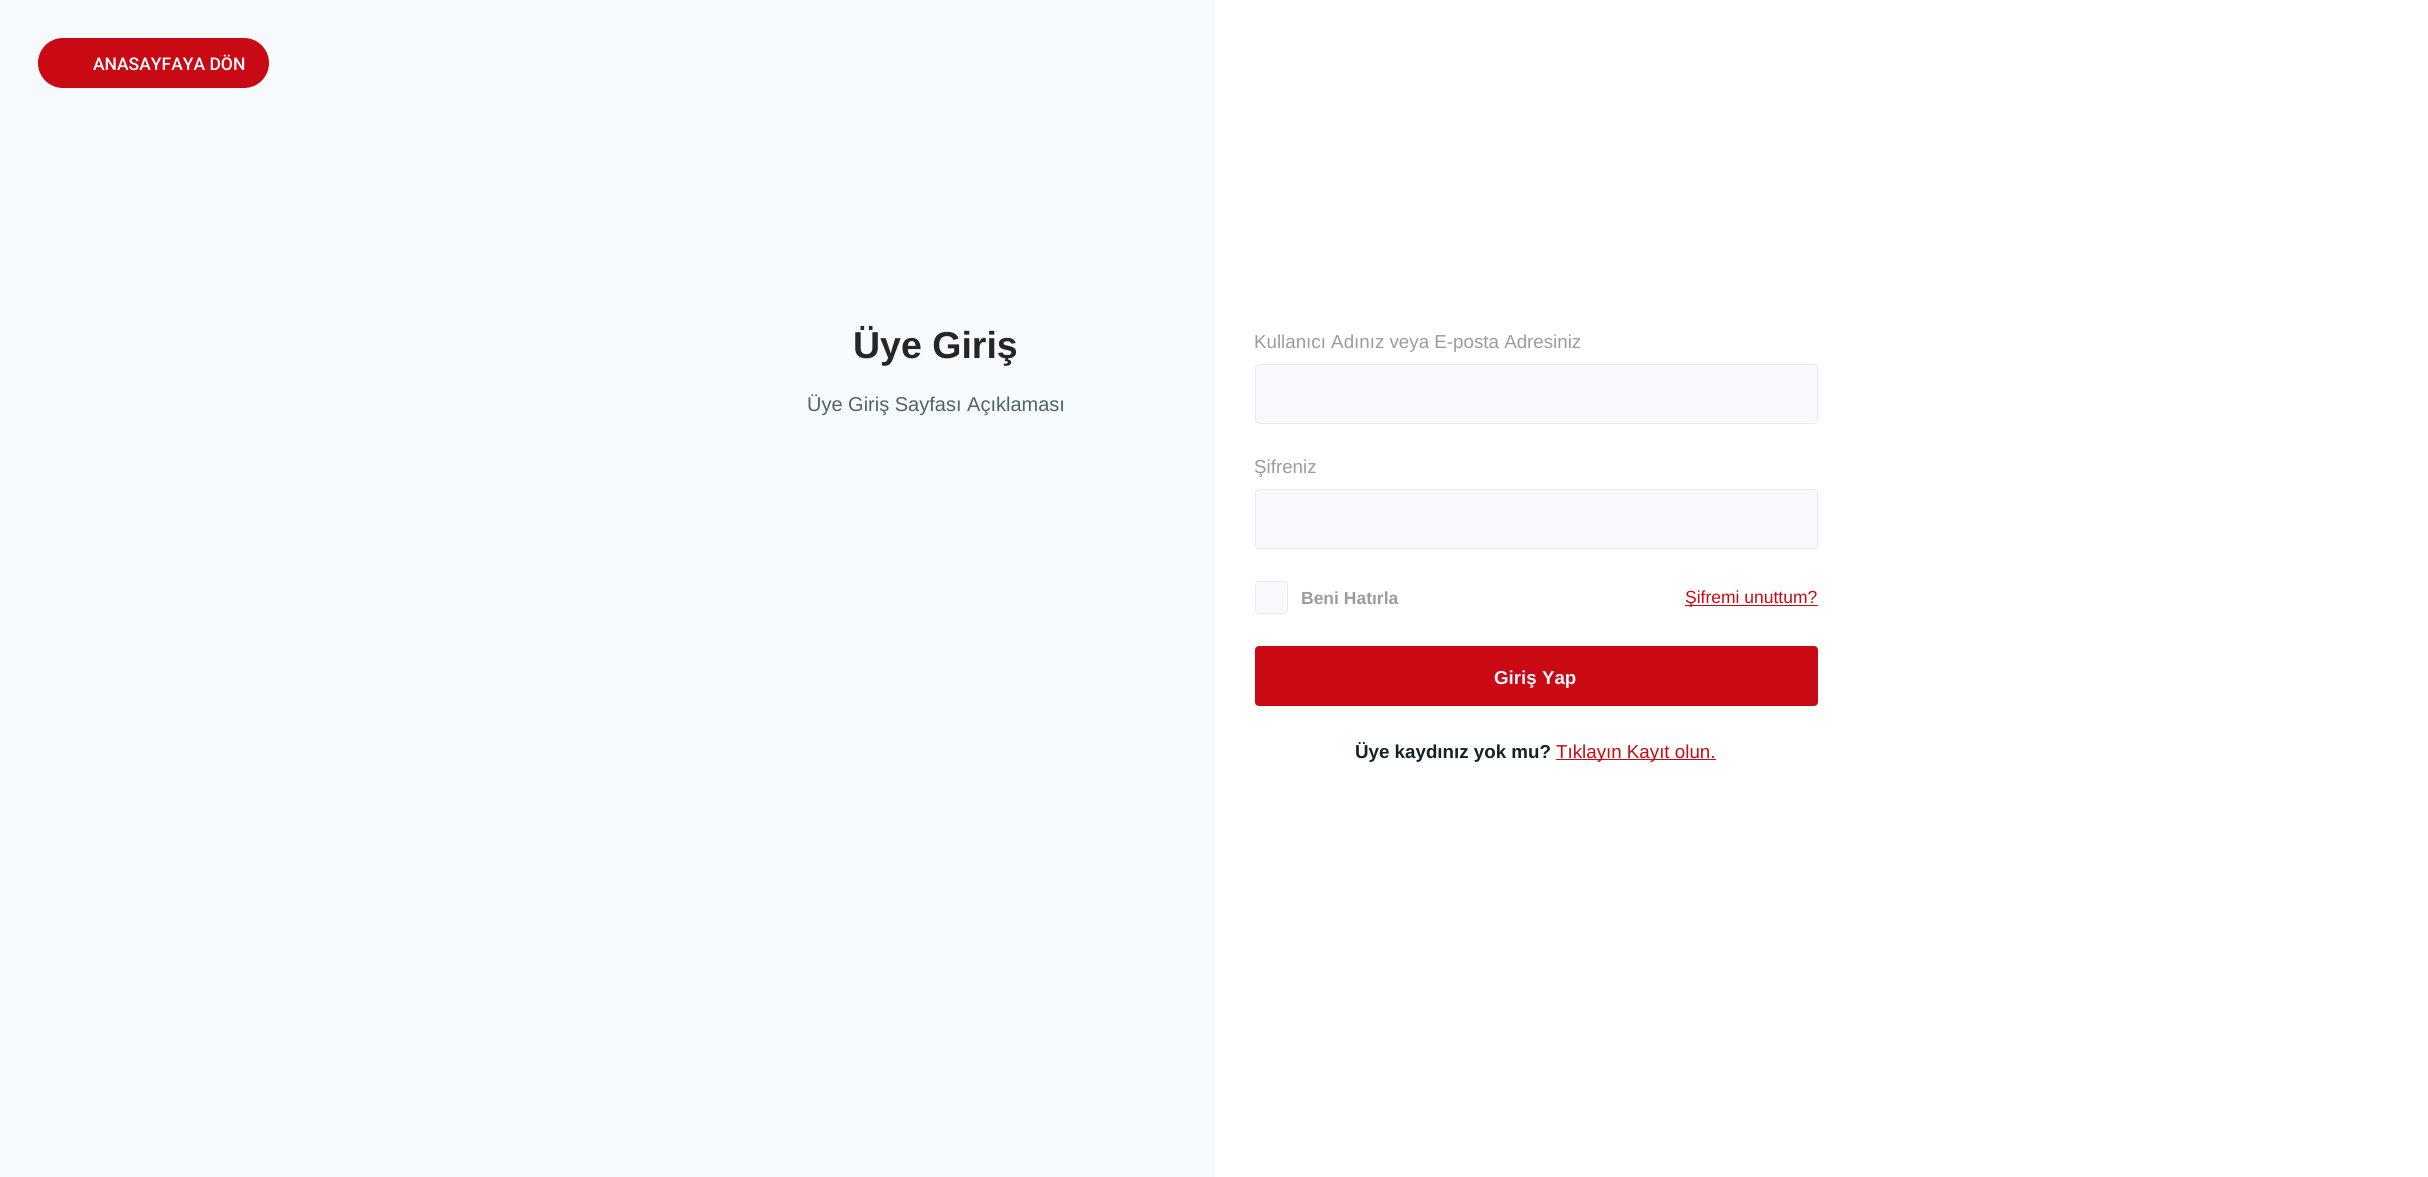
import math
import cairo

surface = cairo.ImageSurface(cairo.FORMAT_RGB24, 2428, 1177)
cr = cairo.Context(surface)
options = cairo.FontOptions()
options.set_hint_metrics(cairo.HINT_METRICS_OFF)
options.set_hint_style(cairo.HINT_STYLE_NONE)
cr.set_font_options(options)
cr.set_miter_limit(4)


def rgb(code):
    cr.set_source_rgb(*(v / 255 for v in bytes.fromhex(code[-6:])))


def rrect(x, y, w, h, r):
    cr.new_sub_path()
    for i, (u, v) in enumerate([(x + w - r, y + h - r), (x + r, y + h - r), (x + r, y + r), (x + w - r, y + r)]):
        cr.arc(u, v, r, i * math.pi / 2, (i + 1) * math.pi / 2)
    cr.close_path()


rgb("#ffffff")
cr.paint()
rgb("#f7fafc")
cr.rectangle(0, 0, 1215, 1177)
cr.fill()
rgb("#c90914")
rrect(38, 38, 231, 50, 25)
cr.fill()
rgb("#f9f9fd")
rrect(1255.5, 364.5, 562, 59, 3.5)
cr.fill_preserve()
rgb("#e9e9f3")
cr.set_line_width(1)
cr.stroke()
rgb("#f9f9fd")
rrect(1255.5, 489.5, 562, 59, 3.5)
cr.fill_preserve()
rgb("#e9e9f3")
cr.stroke()
rgb("#f9f9fd")
rrect(1255.5, 581.5, 32, 32, 3.5)
cr.fill_preserve()
rgb("#e9e9f3")
cr.stroke()
rgb("#c90914")
cr.rectangle(1685, 605, 133, 1)
cr.fill()
rrect(1255, 646, 563, 60, 4)
cr.fill()
cr.rectangle(1556, 759, 160, 1)
cr.fill()
cr.select_font_face("Roboto Medium")
cr.set_font_size(17.5)
rgb("#ffffff")
cr.move_to(93, 70)
cr.show_text("ANASAYFAYA DÖN")
cr.select_font_face("Liberation Sans", cairo.FONT_SLANT_NORMAL, cairo.FONT_WEIGHT_BOLD)
cr.set_font_size(37.5)
rgb("#242628")
cr.move_to(853, 358)
cr.show_text("Üye Giriş")
cr.select_font_face("Liberation Sans")
cr.set_font_size(20)
rgb("#51626a")
cr.move_to(807, 411)
cr.show_text("Üye Giriş Sayfası Açıklaması")
cr.set_font_size(18.75)
rgb("#9b9ba3")
cr.move_to(1254, 348)
cr.show_text("Kullanıcı Adınız veya E-posta Adresiniz")
cr.move_to(1254, 473)
cr.show_text("Şifreniz")
cr.select_font_face("Liberation Sans", cairo.FONT_SLANT_NORMAL, cairo.FONT_WEIGHT_BOLD)
cr.set_font_size(17.5)
cr.move_to(1301, 604)
cr.show_text("Beni Hatırla")
cr.select_font_face("Liberation Sans")
rgb("#c90914")
cr.move_to(1685, 603)
cr.show_text("Şifremi unuttum?")
cr.select_font_face("Liberation Sans", cairo.FONT_SLANT_NORMAL, cairo.FONT_WEIGHT_BOLD)
cr.set_font_size(18.75)
rgb("#f0f3f7")
cr.move_to(1494, 684)
cr.show_text("Giriş Yap")
rgb("#15212a")
cr.move_to(1355, 758)
cr.show_text("Üye kaydınız yok mu?")
cr.select_font_face("Liberation Sans")
rgb("#c90914")
cr.move_to(1556, 758)
cr.show_text("Tıklayın Kayıt olun.")
surface.write_to_png("page.png")
